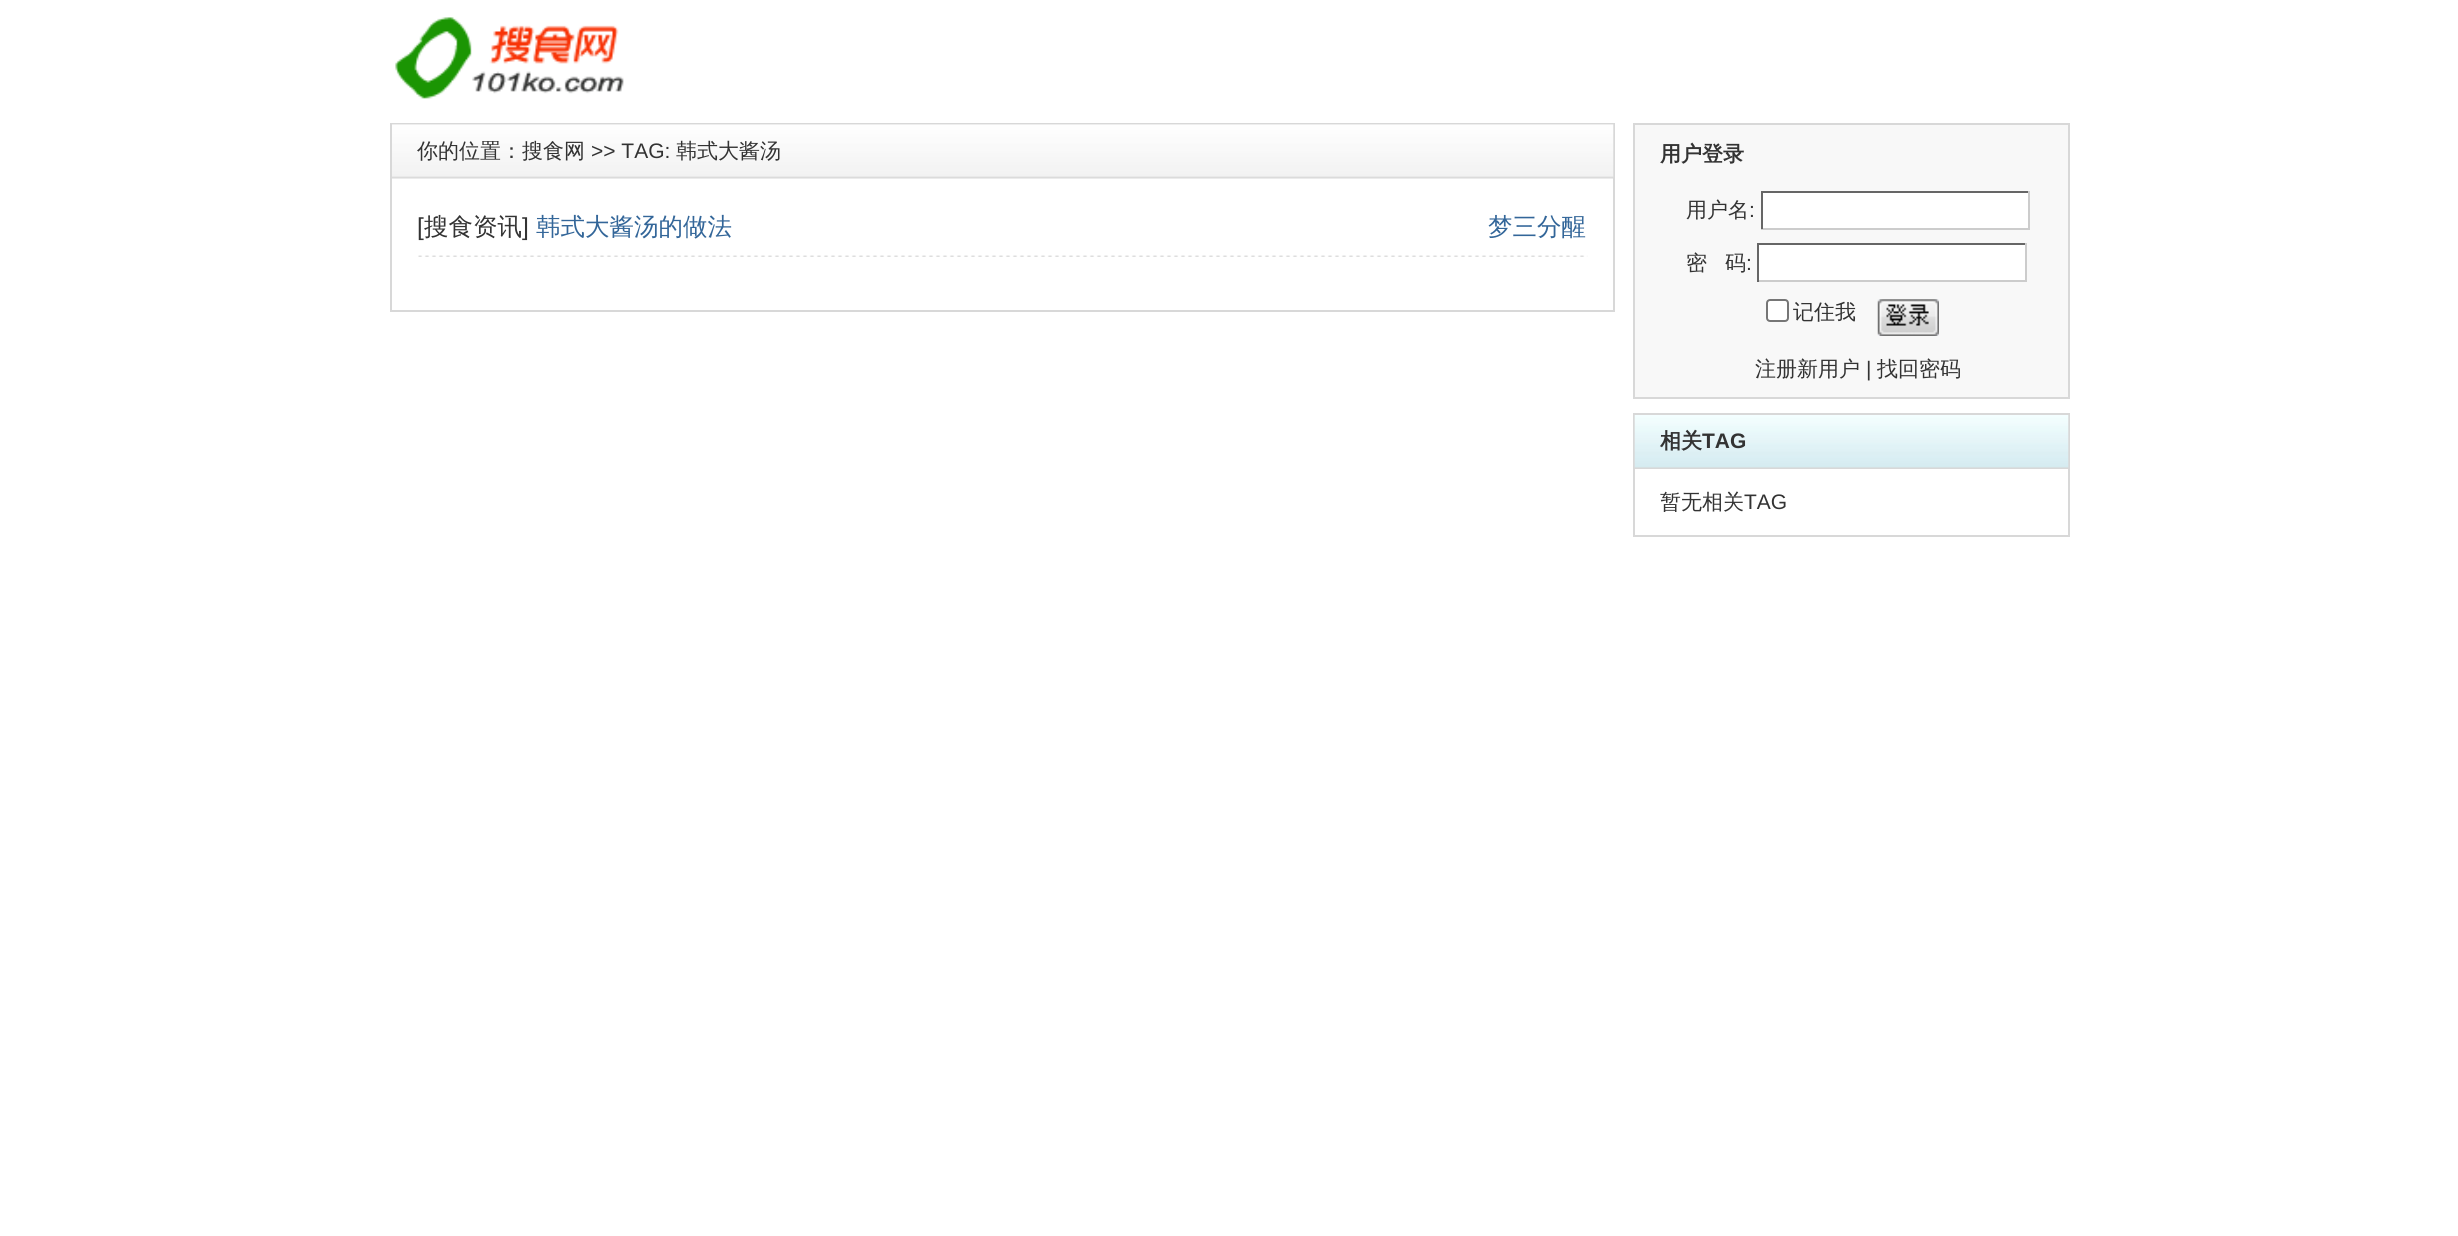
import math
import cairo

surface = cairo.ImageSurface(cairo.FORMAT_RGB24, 2458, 1236)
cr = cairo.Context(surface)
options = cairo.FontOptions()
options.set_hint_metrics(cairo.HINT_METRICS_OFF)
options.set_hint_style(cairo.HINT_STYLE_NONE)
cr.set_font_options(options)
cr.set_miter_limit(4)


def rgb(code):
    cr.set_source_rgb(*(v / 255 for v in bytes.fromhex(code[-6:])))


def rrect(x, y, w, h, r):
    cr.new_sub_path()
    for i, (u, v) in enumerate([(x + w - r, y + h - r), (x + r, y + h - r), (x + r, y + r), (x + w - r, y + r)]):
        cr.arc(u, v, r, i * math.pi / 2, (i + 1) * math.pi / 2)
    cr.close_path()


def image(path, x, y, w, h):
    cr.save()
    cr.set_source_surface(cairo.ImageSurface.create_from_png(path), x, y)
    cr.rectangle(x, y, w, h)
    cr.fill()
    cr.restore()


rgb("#ffffff")
cr.paint()
image("img/1.png", 395, 17, 229, 82)
cr.rectangle(391, 124, 1223, 187)
rgb("#d8d8d8")
cr.stroke()
image("img/2.png", 392, 124, 1222, 55)
image("img/3.png", 418, 255, 1170, 2)
rgb("#f8f8f8")
cr.rectangle(1634, 124, 435, 274)
cr.fill_preserve()
rgb("#d8d8d8")
cr.stroke()
for x, y, w, h, color in [
    (1763, 193, 265, 35, "#ffffff"),
    (1761, 191, 269, 2, "#666666"),
    (2028, 191, 2, 38, "#cccccc"),
    (1761, 228, 269, 2, "#cccccc"),
    (1761, 191, 2, 38, "#666666"),
    (1759, 245, 266, 35, "#ffffff"),
    (1757, 243, 270, 2, "#666666"),
    (2025, 243, 2, 39, "#cccccc"),
    (1757, 280, 270, 2, "#cccccc"),
    (1757, 243, 2, 39, "#666666"),
]:
    rgb(color)
    cr.rectangle(x, y, w, h)
    cr.fill()
rgb("#ffffff")
rrect(1767, 300, 21, 21, 3)
cr.fill_preserve()
rgb("#767676")
cr.stroke()
image("img/4.png", 1877, 299, 62, 37)
cr.rectangle(1634, 414, 435, 122)
rgb("#d8d8d8")
cr.stroke()
image("img/5.png", 1634, 415, 435, 54)
cr.select_font_face("WenQuanYi Zen Hei Medium")
cr.set_font_size(21)
rgb("#333333")
cr.move_to(417, 158)
cr.show_text("你的位置：搜食网")
cr.select_font_face("Liberation Sans")
cr.move_to(591, 158)
cr.show_text(">> TAG:")
cr.select_font_face("WenQuanYi Zen Hei Medium")
cr.move_to(676, 158)
cr.show_text("韩式大酱汤")
cr.select_font_face("Liberation Sans")
cr.set_font_size(24.5)
cr.move_to(417, 235)
cr.show_text("[")
cr.select_font_face("WenQuanYi Zen Hei Medium")
cr.move_to(424, 235)
cr.show_text("搜食资讯")
cr.select_font_face("Liberation Sans")
cr.move_to(522, 235)
cr.show_text("]")
cr.select_font_face("WenQuanYi Zen Hei Medium")
rgb("#336699")
cr.move_to(536, 235)
cr.show_text("韩式大酱汤的做法")
cr.move_to(1488, 235)
cr.show_text("梦三分醒")
cr.select_font_face("WenQuanYi Zen Hei", cairo.FONT_SLANT_NORMAL, cairo.FONT_WEIGHT_BOLD)
cr.set_font_size(21)
rgb("#333333")
cr.move_to(1660, 161)
cr.show_text("用户登录")
cr.select_font_face("WenQuanYi Zen Hei Medium")
cr.move_to(1686, 217)
cr.show_text("用户名")
cr.select_font_face("Liberation Sans")
cr.move_to(1749, 217)
cr.show_text(":")
cr.select_font_face("WenQuanYi Zen Hei Medium")
cr.move_to(1686, 270)
cr.show_text("密")
cr.move_to(1725, 270)
cr.show_text("码")
cr.select_font_face("Liberation Sans")
cr.move_to(1746, 270)
cr.show_text(":")
cr.select_font_face("WenQuanYi Zen Hei Medium")
cr.move_to(1793, 319)
cr.show_text("记住我")
cr.move_to(1755, 376)
cr.show_text("注册新用户")
cr.select_font_face("Liberation Sans")
cr.move_to(1866, 376)
cr.show_text("|")
cr.select_font_face("WenQuanYi Zen Hei Medium")
cr.move_to(1877, 376)
cr.show_text("找回密码")
cr.select_font_face("WenQuanYi Zen Hei", cairo.FONT_SLANT_NORMAL, cairo.FONT_WEIGHT_BOLD)
cr.move_to(1660, 448)
cr.show_text("相关")
cr.select_font_face("Liberation Sans", cairo.FONT_SLANT_NORMAL, cairo.FONT_WEIGHT_BOLD)
cr.move_to(1702, 448)
cr.show_text("TAG")
cr.select_font_face("WenQuanYi Zen Hei Medium")
cr.move_to(1660, 509)
cr.show_text("暂无相关")
cr.select_font_face("Liberation Sans")
cr.move_to(1744, 509)
cr.show_text("TAG")
surface.write_to_png("page.png")
